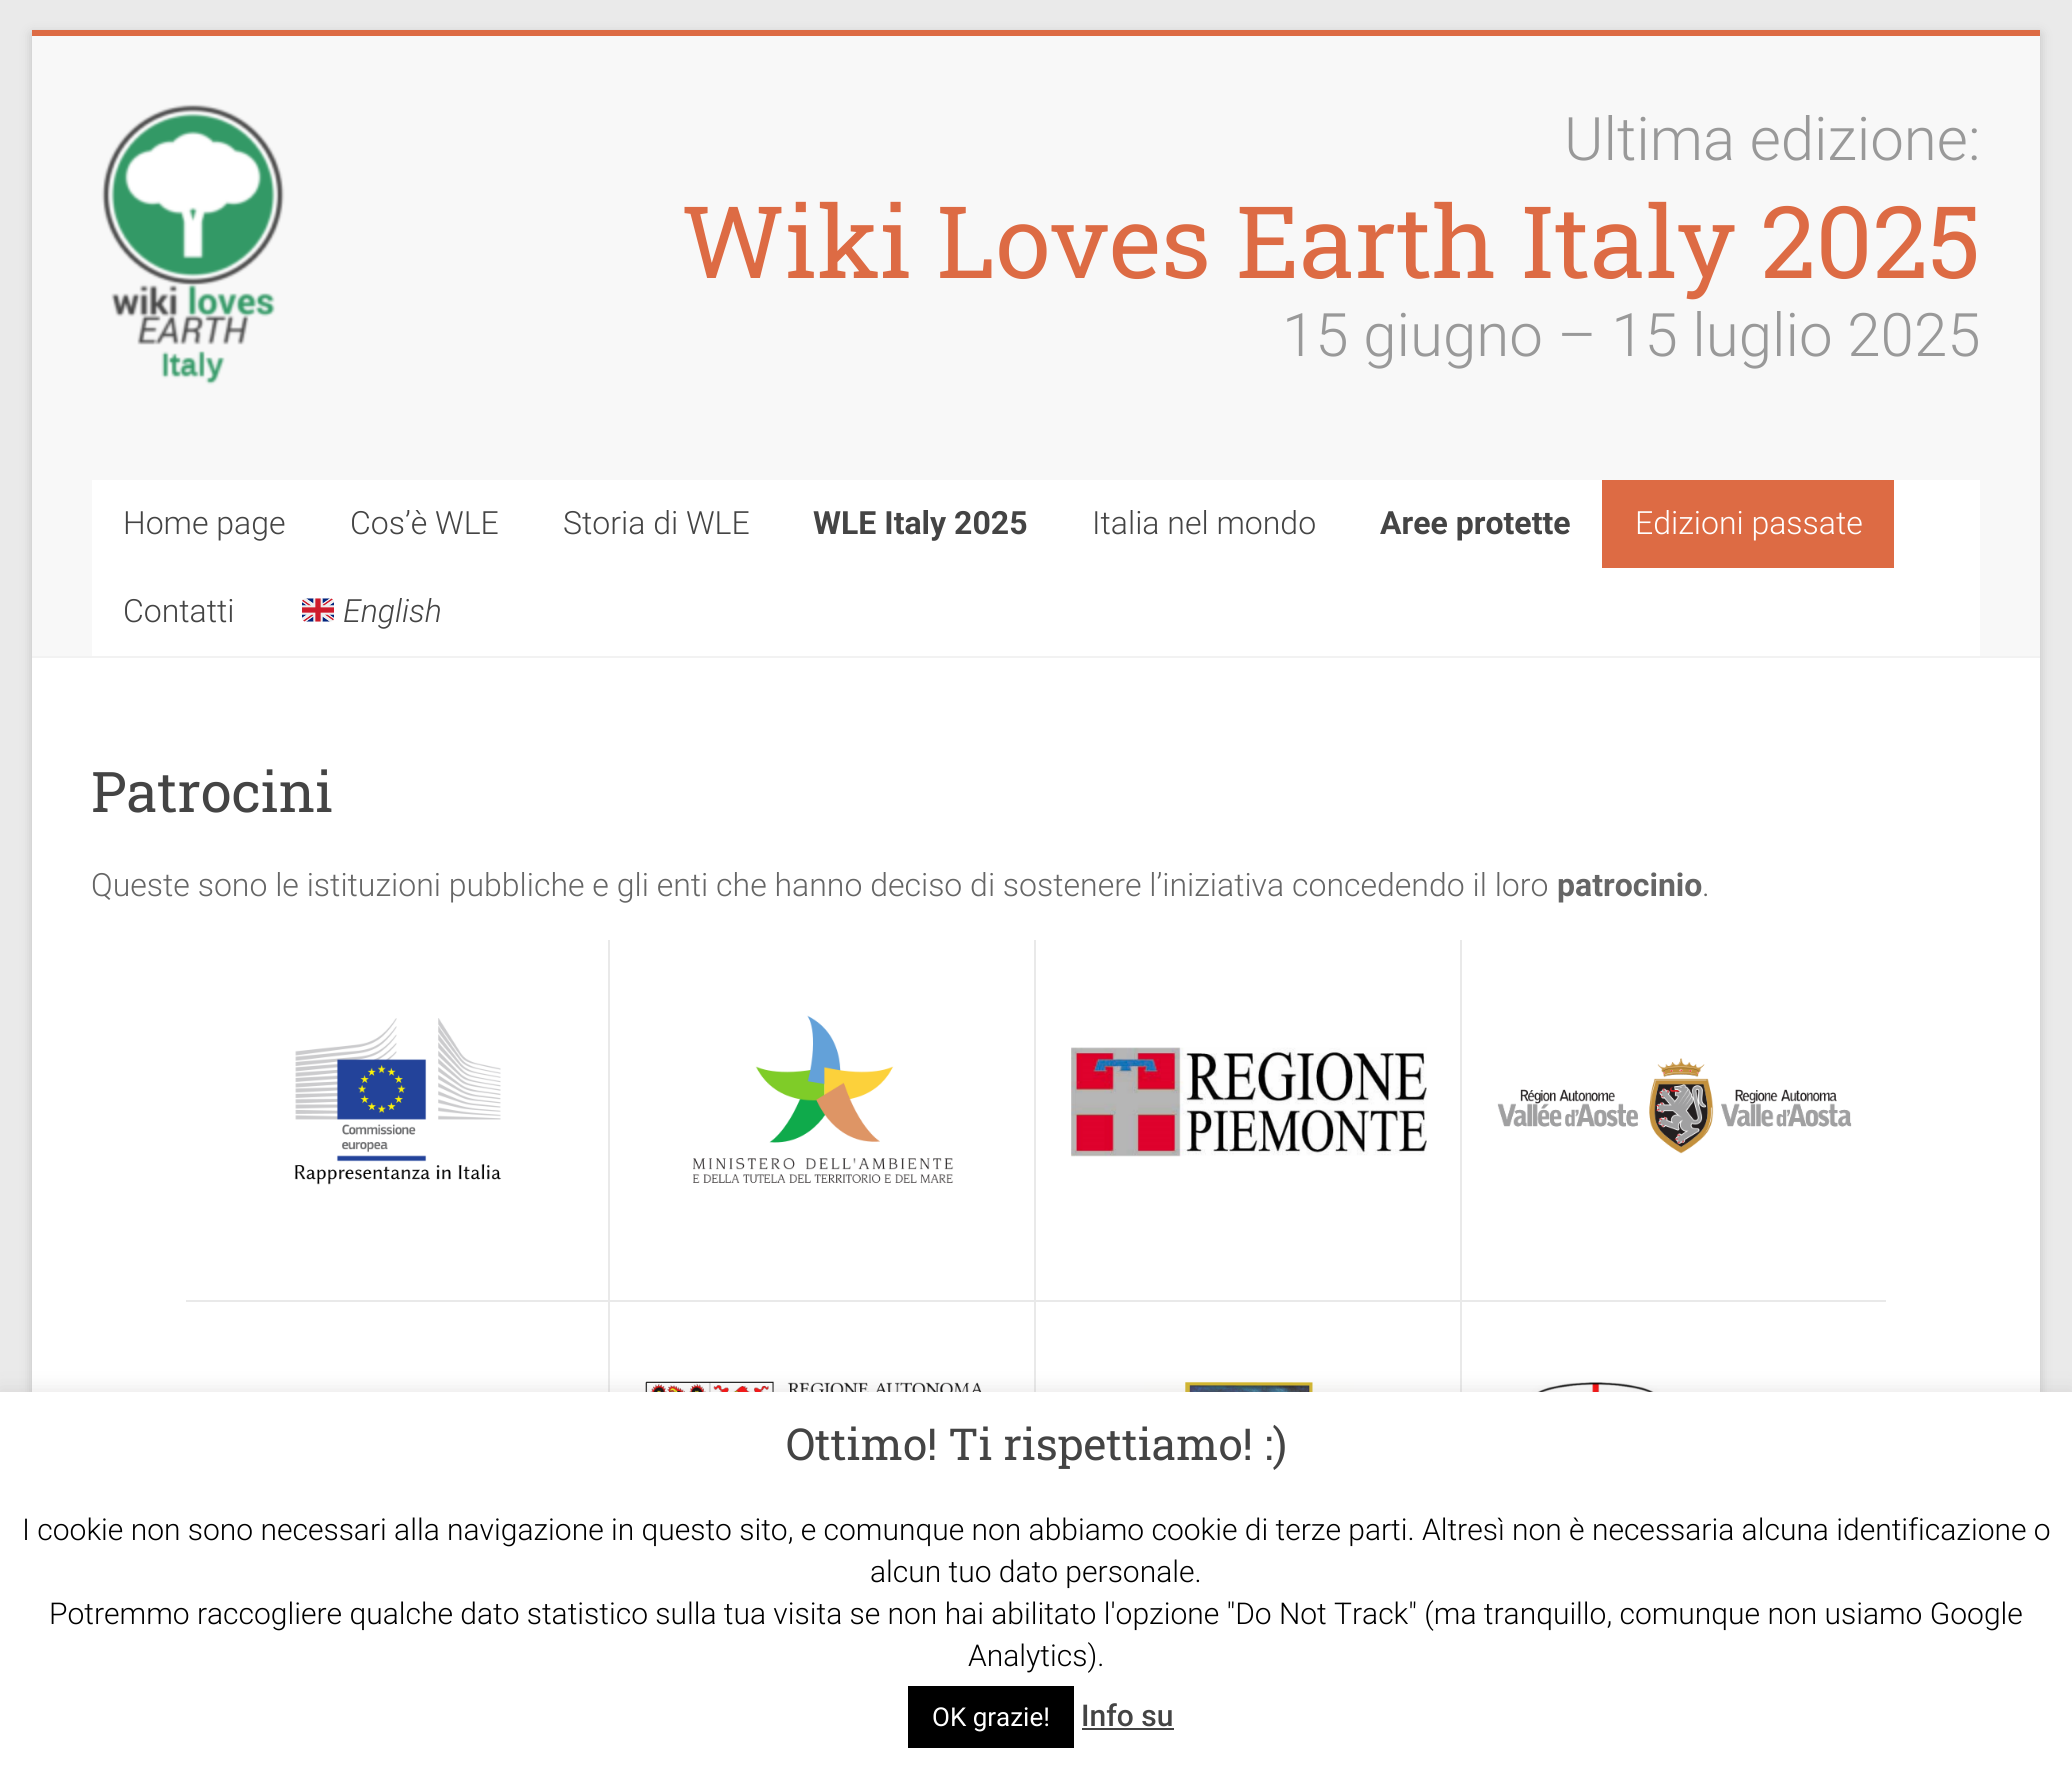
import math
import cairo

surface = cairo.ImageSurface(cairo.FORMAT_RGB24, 2072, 1771)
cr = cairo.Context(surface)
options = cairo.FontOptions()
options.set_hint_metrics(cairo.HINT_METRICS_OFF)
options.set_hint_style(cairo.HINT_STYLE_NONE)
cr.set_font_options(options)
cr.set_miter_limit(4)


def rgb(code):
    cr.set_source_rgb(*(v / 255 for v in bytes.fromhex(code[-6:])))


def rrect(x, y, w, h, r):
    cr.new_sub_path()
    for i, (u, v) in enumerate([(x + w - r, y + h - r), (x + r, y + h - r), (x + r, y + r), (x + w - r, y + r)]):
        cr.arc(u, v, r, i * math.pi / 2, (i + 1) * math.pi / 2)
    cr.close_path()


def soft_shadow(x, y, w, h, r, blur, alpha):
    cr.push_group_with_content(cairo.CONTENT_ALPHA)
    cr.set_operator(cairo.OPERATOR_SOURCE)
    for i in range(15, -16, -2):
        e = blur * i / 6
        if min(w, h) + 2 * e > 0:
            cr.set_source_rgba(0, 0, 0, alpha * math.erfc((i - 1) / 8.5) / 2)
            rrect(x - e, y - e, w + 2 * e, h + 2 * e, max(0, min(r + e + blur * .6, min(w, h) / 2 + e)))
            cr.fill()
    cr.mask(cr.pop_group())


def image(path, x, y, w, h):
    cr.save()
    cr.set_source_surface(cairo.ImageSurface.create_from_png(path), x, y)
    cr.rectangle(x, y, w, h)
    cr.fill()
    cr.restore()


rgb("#eaeaea")
cr.paint()
rgb("#646464")
soft_shadow(32, 34, 2008, 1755, 0, 6, 0.3)
for x, y, w, h, color in [
    (32, 658, 2008, 734, "#ffffff"),
    (32, 30, 2008, 6, "#dd6b44"),
    (32, 36, 2008, 620, "#f8f8f8"),
    (32, 656, 2008, 2, "#f2f2f2"),
]:
    rgb(color)
    cr.rectangle(x, y, w, h)
    cr.fill()
image("img/1.png", 101, 104, 184, 281)
rgb("#ffffff")
cr.rectangle(92, 480, 1888, 176)
cr.fill()
rgb("#dd6b44")
cr.rectangle(1602, 480, 292, 88)
cr.fill()
image("img/2.png", 302, 598, 32, 24)
rgb("#e9e9e9")
cr.rectangle(186, 1300, 1700, 2)
cr.fill()
cr.rectangle(608, 940, 2, 452)
cr.fill()
image("img/3.png", 693, 1015, 261, 169)
cr.rectangle(1034, 940, 2, 452)
cr.fill()
image("img/4.png", 1071, 1047, 356, 110)
cr.rectangle(1460, 940, 2, 452)
cr.fill()
image("img/5.png", 1497, 1058, 355, 96)
image("img/6.png", 294, 1018, 208, 167)
image("img/7.png", 645, 1381, 337, 11)
image("img/8.png", 1144, 1382, 210, 10)
image("img/9.png", 1531, 1382, 284, 10)
rgb("#acabab")
soft_shadow(0, 1390, 2072, 380, 0, 10, 0.3)
for x, y, w, h, color in [
    (0, 1392, 2072, 379, "#ffffff"),
    (908, 1686, 166, 62, "#000000"),
    (1082, 1728, 92, 2, "#444444"),
]:
    rgb(color)
    cr.rectangle(x, y, w, h)
    cr.fill()
cr.select_font_face("Roboto Light")
cr.set_font_size(60)
rgb("#999999")
cr.move_to(1564, 160)
cr.show_text("Ultima edizione:")
cr.select_font_face("Roboto Slab")
cr.set_font_size(100)
rgb("#dd6b44")
cr.move_to(681, 278)
cr.show_text("Wiki Loves Earth Italy 2025")
cr.select_font_face("Roboto Light")
cr.set_font_size(60)
rgb("#999999")
cr.move_to(1282, 356)
cr.show_text("15 giugno – 15 luglio 2025")
cr.set_font_size(32)
rgb("#444444")
for x, y, s in [
    (123, 534, "Home page"),
    (350, 534, "Cos’è WLE"),
    (563, 534, "Storia di WLE"),
]:
    cr.move_to(x, y)
    cr.show_text(s)
cr.select_font_face("Roboto", cairo.FONT_SLANT_NORMAL, cairo.FONT_WEIGHT_BOLD)
cr.move_to(813, 534)
cr.show_text("WLE Italy 2025")
cr.select_font_face("Roboto Light")
cr.move_to(1092, 534)
cr.show_text("Italia nel mondo")
cr.select_font_face("Roboto", cairo.FONT_SLANT_NORMAL, cairo.FONT_WEIGHT_BOLD)
cr.move_to(1380, 534)
cr.show_text("Aree protette")
cr.select_font_face("Roboto Light")
rgb("#ffffff")
cr.move_to(1635, 534)
cr.show_text("Edizioni passate")
rgb("#444444")
cr.move_to(123, 622)
cr.show_text("Contatti")
cr.select_font_face("Roboto Light", cairo.FONT_SLANT_ITALIC)
cr.move_to(343, 622)
cr.show_text("English")
cr.select_font_face("Roboto Slab")
cr.set_font_size(56)
cr.move_to(91, 812)
cr.show_text("Patrocini")
cr.select_font_face("Roboto Light")
cr.set_font_size(32)
rgb("#666666")
cr.move_to(91, 896)
cr.show_text("Queste sono le istituzioni pubbliche e gli enti che hanno deciso di sostenere l’iniziativa concedendo il loro")
cr.select_font_face("Roboto", cairo.FONT_SLANT_NORMAL, cairo.FONT_WEIGHT_BOLD)
cr.move_to(1557, 896)
cr.show_text("patrocinio")
cr.select_font_face("Roboto Light")
cr.move_to(1702, 896)
cr.show_text(".")
cr.select_font_face("Roboto Slab")
cr.set_font_size(44)
rgb("#444444")
cr.move_to(786, 1460)
cr.show_text("Ottimo! Ti rispettiamo! :)")
cr.select_font_face("Roboto Light")
cr.set_font_size(30)
rgb("#000000")
for x, y, s in [
    (22, 1540, "I cookie non sono necessari alla navigazione in questo sito, e comunque non abbiamo cookie di terze parti. Altresì non è necessaria alcuna identificazione o"),
    (870, 1582, "alcun tuo dato personale."),
    (49, 1624, "Potremmo raccogliere qualche dato statistico sulla tua visita se non hai abilitato l'opzione \"Do Not Track\" (ma tranquillo, comunque non usiamo Google"),
    (968, 1666, "Analytics)."),
]:
    cr.move_to(x, y)
    cr.show_text(s)
cr.select_font_face("Roboto")
cr.set_font_size(26)
rgb("#ffffff")
cr.move_to(932, 1726)
cr.show_text("OK grazie!")
cr.select_font_face("Roboto Medium")
cr.set_font_size(30)
rgb("#444444")
cr.move_to(1081, 1726)
cr.show_text("Info su")
surface.write_to_png("page.png")
